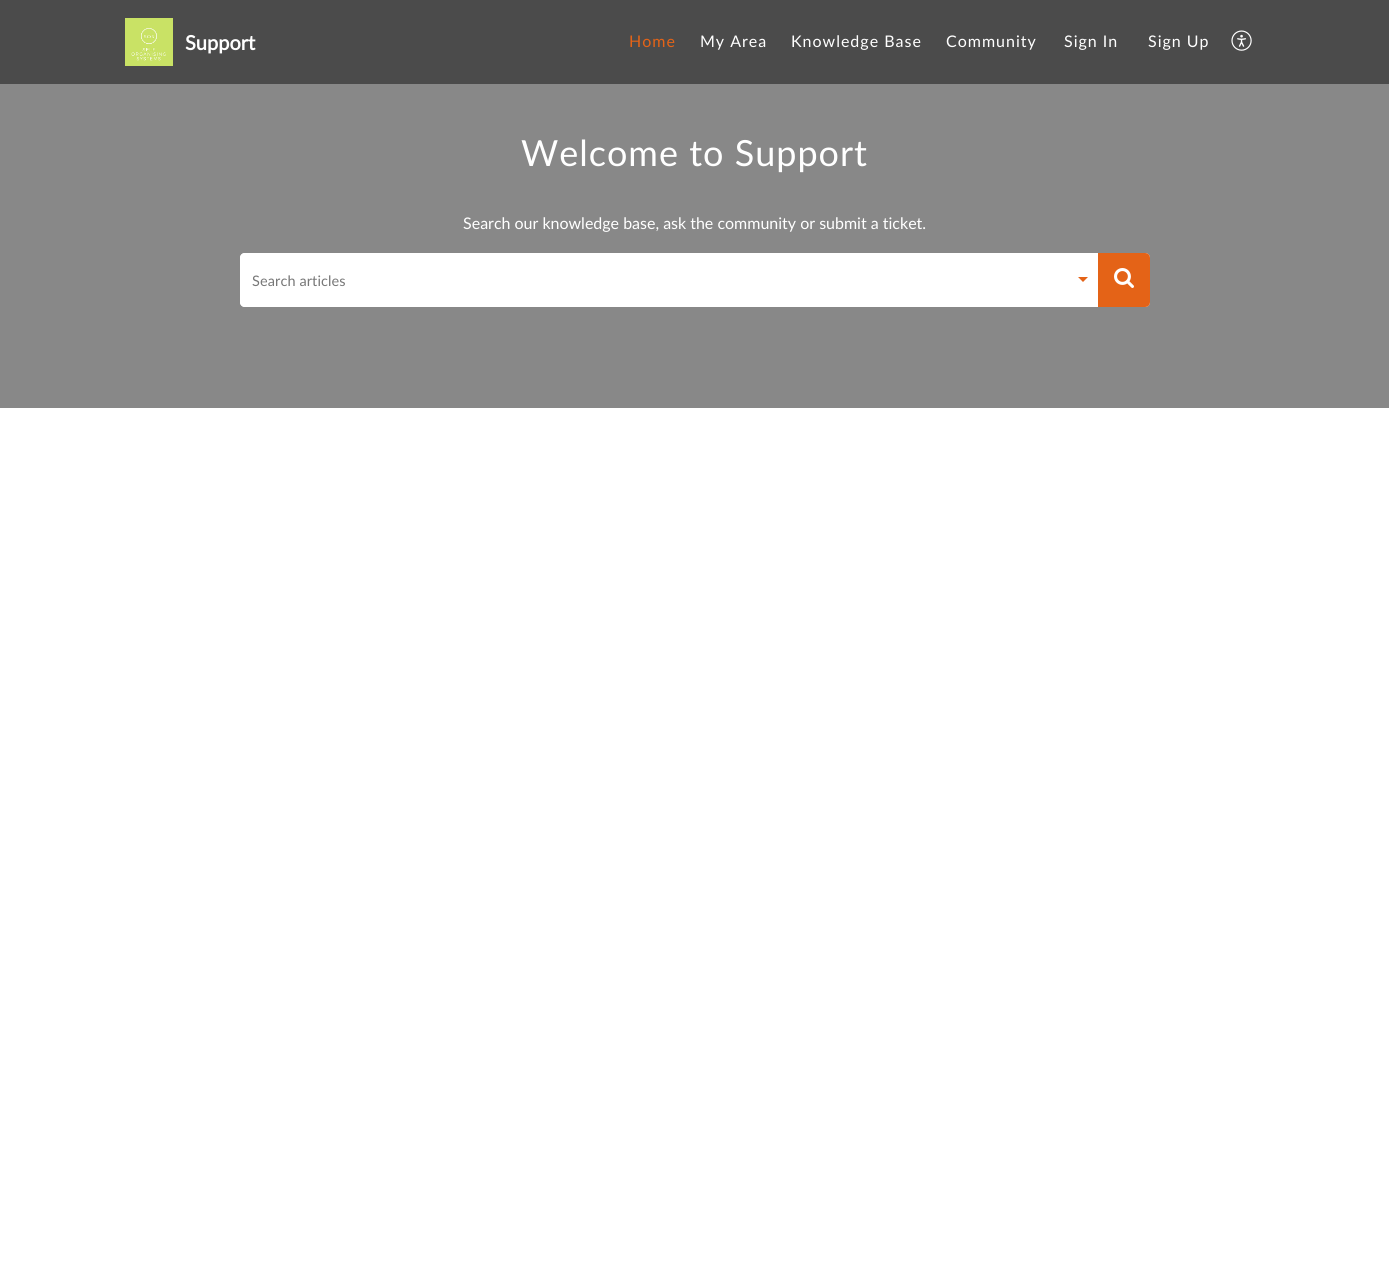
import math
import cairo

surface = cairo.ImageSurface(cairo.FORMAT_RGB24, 1389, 1279)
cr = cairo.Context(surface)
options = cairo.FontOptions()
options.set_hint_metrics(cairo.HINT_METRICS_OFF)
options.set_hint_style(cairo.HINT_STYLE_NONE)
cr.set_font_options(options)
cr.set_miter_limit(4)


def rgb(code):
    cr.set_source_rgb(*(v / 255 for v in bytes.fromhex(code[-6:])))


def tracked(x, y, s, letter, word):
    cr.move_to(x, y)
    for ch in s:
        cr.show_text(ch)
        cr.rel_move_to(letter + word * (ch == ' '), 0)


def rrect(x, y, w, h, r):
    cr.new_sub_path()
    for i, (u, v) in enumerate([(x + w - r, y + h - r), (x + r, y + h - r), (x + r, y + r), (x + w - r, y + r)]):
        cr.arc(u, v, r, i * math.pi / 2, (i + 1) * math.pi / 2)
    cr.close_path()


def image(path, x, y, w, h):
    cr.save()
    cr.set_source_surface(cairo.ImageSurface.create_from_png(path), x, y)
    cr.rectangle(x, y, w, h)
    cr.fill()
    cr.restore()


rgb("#ffffff")
cr.paint()
rgb("#888888")
cr.rectangle(0, 84, 1389, 324)
cr.fill()
rgb("#4b4b4b")
cr.rectangle(0, 0, 1389, 84)
cr.fill()
image("img/1.png", 125, 18, 48, 48)
image("img/2.png", 1231, 30, 21, 21)
rgb("#ffffff")
rrect(240, 253, 910, 54, 5)
cr.fill()
cr.new_path()
cr.move_to(245, 253)
cr.line_to(1066, 253)
cr.line_to(1066, 307)
cr.line_to(245, 307)
cr.curve_to(242, 307, 240, 305, 240, 302)
cr.line_to(240, 258)
cr.curve_to(240, 255, 242, 253, 245, 253)
cr.close_path()
cr.fill()
rgb("#e46317")
cr.new_path()
cr.move_to(1078, 277)
cr.line_to(1088, 277)
cr.line_to(1083, 282)
cr.close_path()
cr.fill()
cr.new_path()
cr.move_to(1098, 253)
cr.line_to(1145, 253)
cr.curve_to(1148, 253, 1150, 255, 1150, 258)
cr.line_to(1150, 302)
cr.curve_to(1150, 305, 1148, 307, 1145, 307)
cr.line_to(1098, 307)
cr.close_path()
cr.fill()
image("img/3.png", 1114, 268, 20, 20)
cr.select_font_face("Lato", cairo.FONT_SLANT_NORMAL, cairo.FONT_WEIGHT_BOLD)
cr.set_font_size(20)
rgb("#ffffff")
cr.move_to(185, 50)
cr.show_text("Support")
cr.select_font_face("Lato")
cr.set_font_size(16)
rgb("#e46317")
tracked(629, 47, "Home", 1, 0)
rgb("#ffffff")
for x, y, s in [
    (700, 47, "My Area"),
    (791, 47, "Knowledge Base"),
    (946, 47, "Community"),
    (1064, 47, "Sign In"),
    (1148, 47, "Sign Up"),
]:
    tracked(x, y, s, 1, 0)
cr.set_font_size(36)
tracked(521, 166, "Welcome to Support", 1, 0)
cr.set_font_size(16)
cr.move_to(463, 229)
cr.show_text("Search our knowledge base, ask the community or submit a ticket.")
cr.set_font_size(14.5)
rgb("#777777")
tracked(252, 286, "Search articles", 0.1, 0)
surface.write_to_png("page.png")
